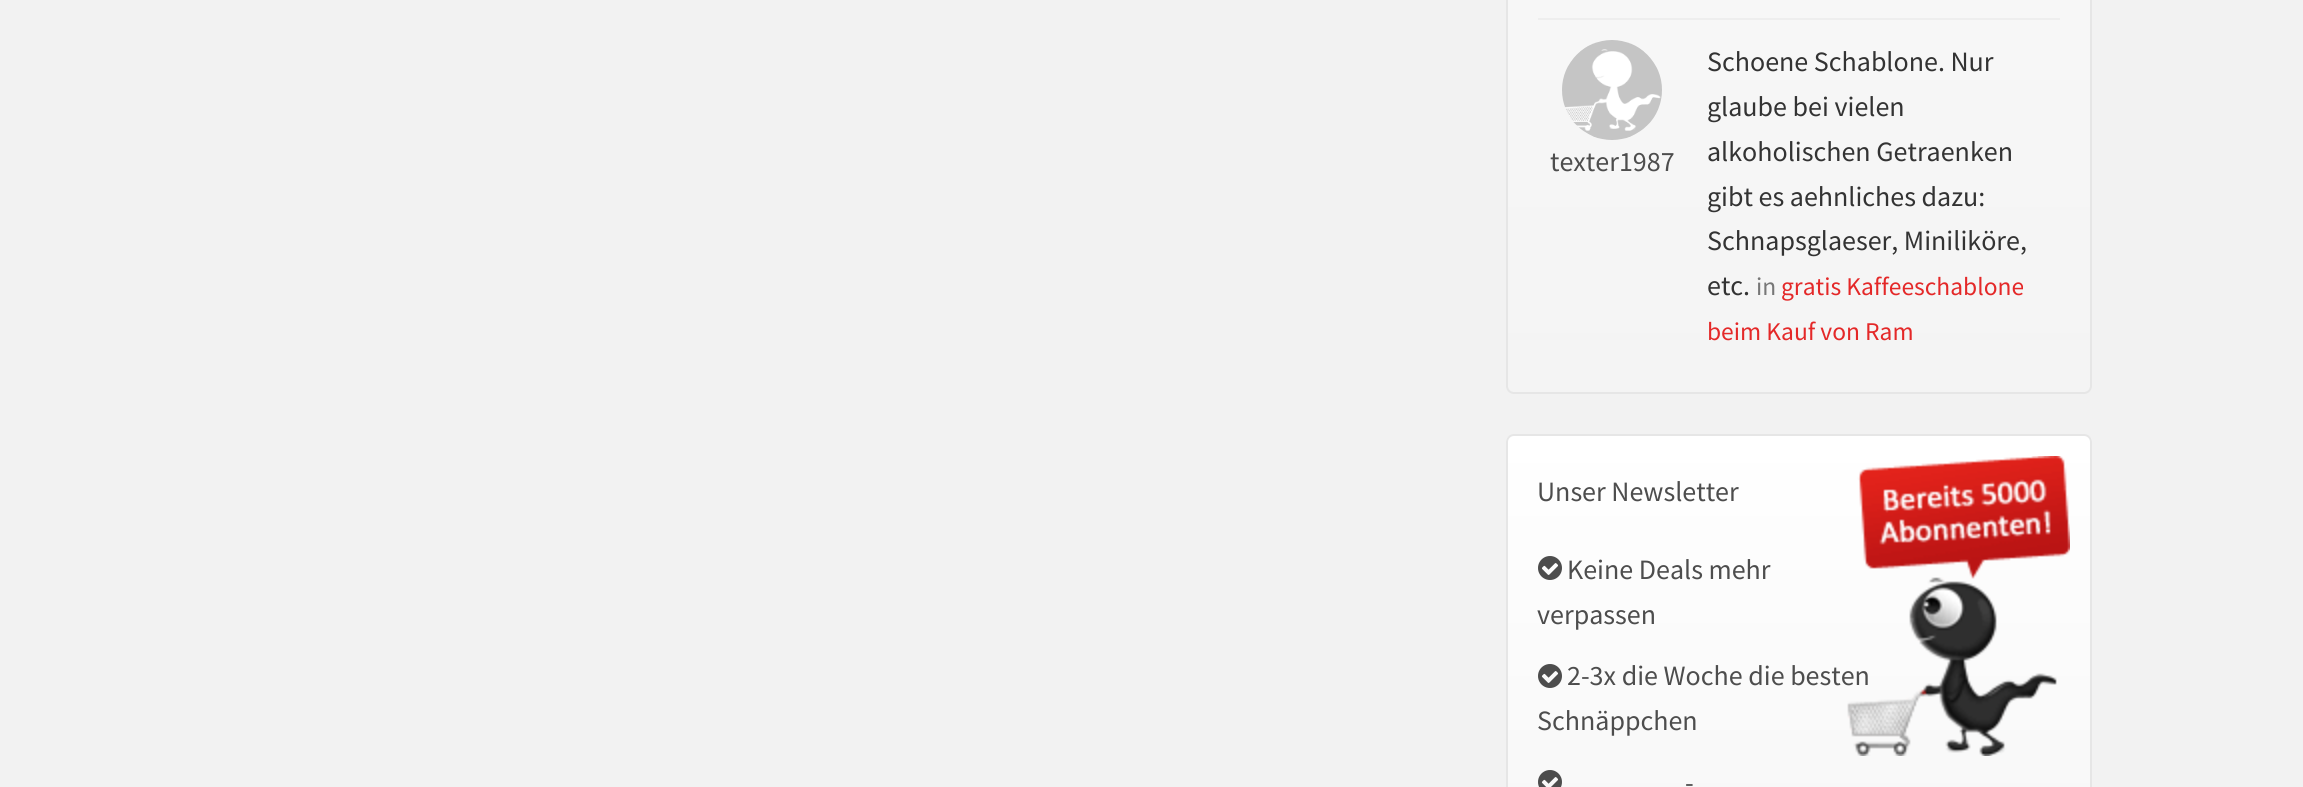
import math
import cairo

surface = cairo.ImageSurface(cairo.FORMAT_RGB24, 2303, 787)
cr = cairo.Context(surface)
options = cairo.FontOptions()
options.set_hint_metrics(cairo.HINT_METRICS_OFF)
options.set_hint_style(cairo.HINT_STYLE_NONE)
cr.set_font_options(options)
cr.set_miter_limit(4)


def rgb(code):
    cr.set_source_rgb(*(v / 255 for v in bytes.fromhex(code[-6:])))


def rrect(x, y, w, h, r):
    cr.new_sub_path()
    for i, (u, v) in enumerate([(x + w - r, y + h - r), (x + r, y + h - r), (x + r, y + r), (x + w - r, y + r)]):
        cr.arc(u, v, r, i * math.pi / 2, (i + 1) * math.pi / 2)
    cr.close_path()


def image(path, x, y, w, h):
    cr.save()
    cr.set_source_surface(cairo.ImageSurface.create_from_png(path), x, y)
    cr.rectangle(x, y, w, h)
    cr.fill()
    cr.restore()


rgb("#f2f2f2")
cr.paint()
cr.save()
rrect(1506, -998, 586, 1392, 8)
cr.clip()
gradient = cairo.LinearGradient(1799, -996, 1799, 392)
gradient.add_color_stop_rgba(0, 1, 1, 1, 1)
gradient.add_color_stop_rgba(1, 0.957, 0.957, 0.957, 1)
cr.set_source(gradient)
cr.rectangle(1506, 0, 586, 392)
cr.fill()
cr.restore()
rrect(1507, -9, 584, 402, 7)
rgb("#e6e6e6")
cr.stroke()
rgb("#eeeeee")
cr.rectangle(1538, 18, 522, 2)
cr.fill()
image("img/1.png", 1562, 40, 100, 100)
cr.save()
rrect(1506, 434, 586, 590, 8)
cr.clip()
gradient = cairo.LinearGradient(1799, 436, 1799, 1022)
gradient.add_color_stop_rgba(0, 1, 1, 1, 1)
gradient.add_color_stop_rgba(1, 0.957, 0.957, 0.957, 1)
cr.set_source(gradient)
cr.rectangle(1506, 436, 586, 351)
cr.fill()
cr.restore()
rrect(1507, 435, 584, 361, 7)
rgb("#e6e6e6")
cr.stroke()
image("img/3.png", 1538, 556, 24, 24)
image("img/4.png", 1538, 664, 24, 24)
image("img/5.png", 1538, 770, 24, 17)
cr.select_font_face("Source Sans Pro")
cr.set_font_size(28)
rgb("#4d4d4d")
cr.move_to(1550, 171)
cr.show_text("texter1987")
rgb("#333333")
for x, y, s in [
    (1707, 71, "Schoene Schablone. Nur"),
    (1707, 116, "glaube bei vielen"),
    (1707, 161, "alkoholischen Getraenken"),
    (1707, 206, "gibt es aehnliches dazu:"),
    (1707, 250, "Schnapsglaeser, Miniliköre,"),
    (1707, 295, "etc."),
]:
    cr.move_to(x, y)
    cr.show_text(s)
cr.set_font_size(25.5)
rgb("#777777")
cr.move_to(1756, 295)
cr.show_text("in")
rgb("#e42828")
cr.move_to(1781, 295)
cr.show_text("gratis Kaffeeschablone")
cr.move_to(1707, 340)
cr.show_text("beim Kauf von Ram")
cr.set_font_size(28)
rgb("#4d4d4d")
for x, y, s in [
    (1537, 501, "Unser Newsletter"),
    (1567, 579, "Keine Deals mehr"),
    (1537, 624, "verpassen"),
    (1567, 685, "2-3x die Woche die besten"),
]:
    cr.move_to(x, y)
    cr.show_text(s)
image("img/2.png", 1847, 456, 223, 300)
cr.move_to(1537, 730)
cr.show_text("Schnäppchen")
cr.move_to(1685, 792)
cr.show_text("-")
surface.write_to_png("page.png")
